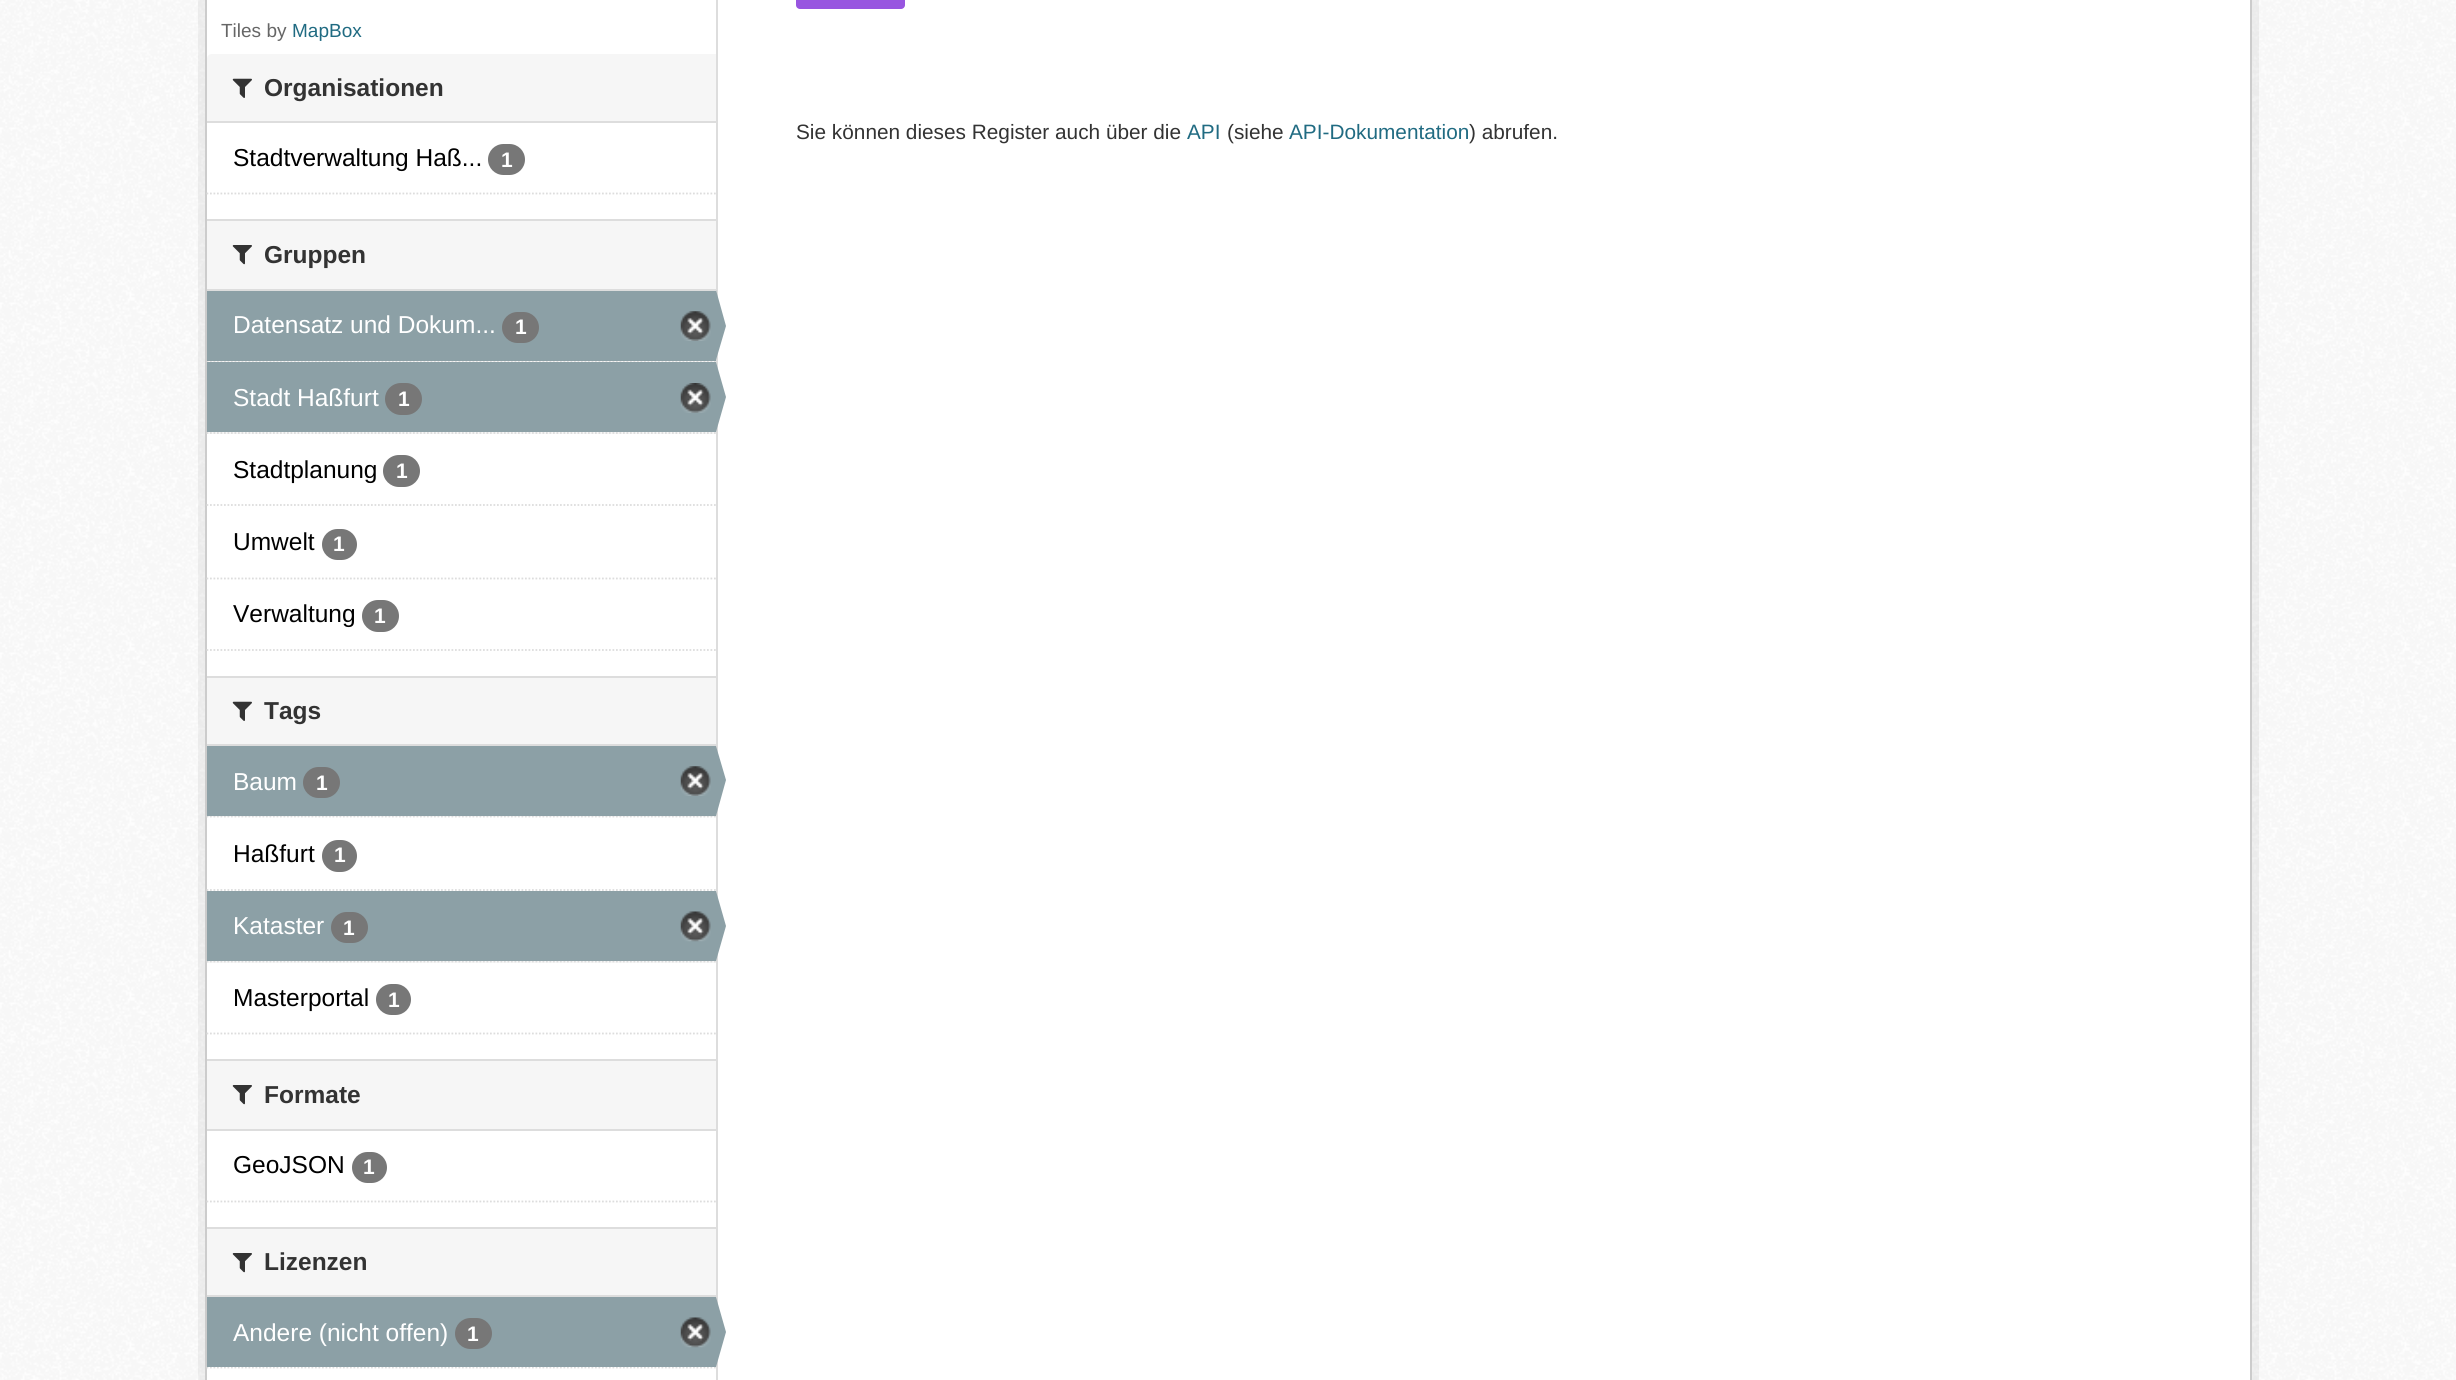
import math
import cairo

surface = cairo.ImageSurface(cairo.FORMAT_RGB24, 2456, 1380)
cr = cairo.Context(surface)
options = cairo.FontOptions()
options.set_hint_metrics(cairo.HINT_METRICS_OFF)
options.set_hint_style(cairo.HINT_STYLE_NONE)
cr.set_font_options(options)
cr.set_miter_limit(4)


def rgb(code):
    cr.set_source_rgb(*(v / 255 for v in bytes.fromhex(code[-6:])))


def rrect(x, y, w, h, r):
    cr.new_sub_path()
    for i, (u, v) in enumerate([(x + w - r, y + h - r), (x + r, y + h - r), (x + r, y + r), (x + w - r, y + r)]):
        cr.arc(u, v, r, i * math.pi / 2, (i + 1) * math.pi / 2)
    cr.close_path()


def image(path, x, y, w, h):
    cr.save()
    cr.set_source_surface(cairo.ImageSurface.create_from_png(path), x, y)
    cr.rectangle(x, y, w, h)
    cr.fill()
    cr.restore()


rgb("#ffffff")
cr.paint()
image("img/1.png", 0, 0, 2456, 1380)
cr.rectangle(201.5, -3.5, 2054, 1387)
cr.set_source_rgba(0, 0, 0, 0.05)
cr.set_line_width(7)
cr.stroke()
rgb("#ffffff")
cr.rectangle(206, -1, 2045, 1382)
cr.fill_preserve()
rgb("#cccccc")
cr.set_line_width(2)
cr.stroke()
rgb("#f6f6f6")
cr.new_path()
cr.move_to(212, 54)
cr.line_to(716, 54)
cr.line_to(716, 123)
cr.line_to(207, 123)
cr.line_to(207, 59)
cr.curve_to(207, 56, 209, 54, 212, 54)
cr.close_path()
cr.fill()
rgb("#dddddd")
cr.rectangle(207, 121, 509, 2)
cr.fill()
image("img/2.png", 232, 78, 20, 20)
rgb("#777777")
rrect(488, 144, 37, 31, 15.5)
cr.fill()
cr.new_path()
cr.move_to(206.5, 193.5)
cr.line_to(716, 193.5)
rgb("#dddddd")
cr.set_line_width(1.8)
cr.set_dash([1.75, 1.75])
cr.stroke()
for x, y, w, h, color in [
    (207, 221, 509, 68, "#f6f6f6"),
    (207, 219, 509, 2, "#dddddd"),
    (207, 289, 509, 2, "#dddddd"),
]:
    rgb(color)
    cr.rectangle(x, y, w, h)
    cr.fill()
image("img/3.png", 232, 245, 20, 20)
rgb("#f6f6f6")
cr.rectangle(208, 361, 508, 1)
cr.fill()
cr.new_path()
cr.move_to(206.5, 361.5)
cr.line_to(716, 361.5)
rgb("#dddddd")
cr.stroke()
rgb("#8ca0a6")
cr.rectangle(207, 291, 509, 70)
cr.fill()
rgb("#777777")
rrect(502, 312, 37, 31, 15.5)
cr.fill()
image("img/4.png", 680, 311, 31, 30)
rgb("#dddddd")
cr.rectangle(716, 0, 2, 1380)
cr.fill()
rgb("#8ca0a6")
cr.new_path()
cr.move_to(716, 360)
cr.line_to(716, 290)
cr.line_to(726, 326)
cr.close_path()
cr.fill()
rgb("#f6f6f6")
cr.rectangle(207, 432, 509, 2)
cr.fill()
cr.new_path()
cr.move_to(206.5, 433)
cr.line_to(716, 433)
rgb("#dddddd")
cr.stroke()
rgb("#8ca0a6")
cr.rectangle(207, 362, 509, 70)
cr.fill()
rgb("#777777")
rrect(385, 383, 37, 32, 16)
cr.fill()
image("img/5.png", 680, 383, 31, 30)
rgb("#8ca0a6")
cr.new_path()
cr.move_to(716, 432)
cr.line_to(716, 362)
cr.line_to(726, 397)
cr.close_path()
cr.fill()
cr.new_path()
cr.move_to(206.5, 505)
cr.line_to(716, 505)
rgb("#dddddd")
cr.stroke()
rgb("#777777")
rrect(383, 455, 37, 32, 16)
cr.fill()
cr.new_path()
cr.move_to(206.5, 578.5)
cr.line_to(716, 578.5)
rgb("#dddddd")
cr.stroke()
rgb("#777777")
rrect(322, 529, 35, 31, 15.5)
cr.fill()
rrect(362, 600, 37, 32, 16)
cr.fill()
cr.new_path()
cr.move_to(206.5, 650)
cr.line_to(716, 650)
rgb("#dddddd")
cr.stroke()
for x, y, w, h, color in [
    (207, 678, 509, 66, "#f6f6f6"),
    (207, 676, 509, 2, "#dddddd"),
    (207, 744, 509, 2, "#dddddd"),
]:
    rgb(color)
    cr.rectangle(x, y, w, h)
    cr.fill()
image("img/2.png", 232, 701, 20, 20)
rgb("#f6f6f6")
cr.rectangle(208, 816, 508, 1)
cr.fill()
cr.new_path()
cr.move_to(206.5, 816.5)
cr.line_to(716, 816.5)
rgb("#dddddd")
cr.stroke()
rgb("#8ca0a6")
cr.rectangle(207, 746, 509, 70)
cr.fill()
rgb("#777777")
rrect(303, 767, 37, 31, 15.5)
cr.fill()
image("img/4.png", 680, 766, 31, 30)
rgb("#8ca0a6")
cr.new_path()
cr.move_to(716, 816)
cr.line_to(716, 746)
cr.line_to(726, 780)
cr.close_path()
cr.fill()
cr.new_path()
cr.move_to(206.5, 890)
cr.line_to(716, 890)
rgb("#dddddd")
cr.stroke()
rgb("#777777")
rrect(322, 840, 35, 32, 16)
cr.fill()
rgb("#f6f6f6")
cr.rectangle(207, 961, 509, 2)
cr.fill()
cr.new_path()
cr.move_to(206.5, 961.5)
cr.line_to(716, 961.5)
rgb("#dddddd")
cr.stroke()
rgb("#8ca0a6")
cr.rectangle(207, 891, 509, 70)
cr.fill()
rgb("#777777")
rrect(331, 912, 37, 31, 15.5)
cr.fill()
image("img/6.png", 680, 911, 31, 31)
rgb("#8ca0a6")
cr.new_path()
cr.move_to(716, 961)
cr.line_to(716, 891)
cr.line_to(726, 926)
cr.close_path()
cr.fill()
rgb("#777777")
rrect(376, 984, 35, 31, 15.5)
cr.fill()
cr.new_path()
cr.move_to(206.5, 1033.5)
cr.line_to(716, 1033.5)
rgb("#dddddd")
cr.stroke()
for x, y, w, h, color in [
    (207, 1061, 509, 68, "#f6f6f6"),
    (207, 1059, 509, 2, "#dddddd"),
    (207, 1129, 509, 2, "#dddddd"),
]:
    rgb(color)
    cr.rectangle(x, y, w, h)
    cr.fill()
image("img/3.png", 232, 1085, 20, 20)
rgb("#777777")
rrect(352, 1152, 35, 31, 15.5)
cr.fill()
cr.new_path()
cr.move_to(206.5, 1201.5)
cr.line_to(716, 1201.5)
rgb("#dddddd")
cr.stroke()
for x, y, w, h, color in [
    (207, 1229, 509, 66, "#f6f6f6"),
    (207, 1227, 509, 2, "#dddddd"),
    (207, 1295, 509, 2, "#dddddd"),
]:
    rgb(color)
    cr.rectangle(x, y, w, h)
    cr.fill()
image("img/3.png", 232, 1253, 20, 20)
cr.new_path()
cr.move_to(206.5, 1367.5)
cr.line_to(716, 1367.5)
cr.stroke()
rgb("#8ca0a6")
cr.rectangle(207, 1297, 509, 70)
cr.fill()
rgb("#777777")
rrect(455, 1318, 37, 31, 15.5)
cr.fill()
image("img/6.png", 680, 1317, 31, 31)
rgb("#8ca0a6")
cr.new_path()
cr.move_to(716, 1367)
cr.line_to(716, 1297)
cr.line_to(726, 1332)
cr.close_path()
cr.fill()
rgb("#9855e0")
rrect(796, -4, 109, 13, 4)
cr.fill()
cr.select_font_face("Liberation Sans")
cr.set_font_size(19)
rgb("#666666")
cr.move_to(221, 37)
cr.show_text("Tiles by")
rgb("#206b82")
cr.move_to(292, 37)
cr.show_text("MapBox")
cr.select_font_face("Liberation Sans", cairo.FONT_SLANT_NORMAL, cairo.FONT_WEIGHT_BOLD)
cr.set_font_size(24.5)
rgb("#333333")
cr.move_to(264, 96)
cr.show_text("Organisationen")
cr.select_font_face("Liberation Sans")
rgb("#000000")
cr.move_to(233, 166)
cr.show_text("Stadtverwaltung Haß...")
cr.select_font_face("Liberation Sans", cairo.FONT_SLANT_NORMAL, cairo.FONT_WEIGHT_BOLD)
cr.set_font_size(21)
rgb("#ffffff")
cr.move_to(501, 167)
cr.show_text("1")
cr.set_font_size(24.5)
rgb("#333333")
cr.move_to(264, 263)
cr.show_text("Gruppen")
cr.select_font_face("Liberation Sans")
rgb("#ffffff")
cr.move_to(233, 333)
cr.show_text("Datensatz und Dokum...")
cr.select_font_face("Liberation Sans", cairo.FONT_SLANT_NORMAL, cairo.FONT_WEIGHT_BOLD)
cr.set_font_size(21)
cr.move_to(515, 334)
cr.show_text("1")
cr.select_font_face("Liberation Sans")
cr.set_font_size(24.5)
cr.move_to(233, 406)
cr.show_text("Stadt Haßfurt")
cr.select_font_face("Liberation Sans", cairo.FONT_SLANT_NORMAL, cairo.FONT_WEIGHT_BOLD)
cr.set_font_size(21)
cr.move_to(398, 406)
cr.show_text("1")
cr.select_font_face("Liberation Sans")
cr.set_font_size(24.5)
rgb("#000000")
cr.move_to(233, 478)
cr.show_text("Stadtplanung")
cr.select_font_face("Liberation Sans", cairo.FONT_SLANT_NORMAL, cairo.FONT_WEIGHT_BOLD)
cr.set_font_size(21)
rgb("#ffffff")
cr.move_to(396, 478)
cr.show_text("1")
cr.select_font_face("Liberation Sans")
cr.set_font_size(24.5)
rgb("#000000")
cr.move_to(233, 550)
cr.show_text("Umwelt")
cr.select_font_face("Liberation Sans", cairo.FONT_SLANT_NORMAL, cairo.FONT_WEIGHT_BOLD)
cr.set_font_size(21)
rgb("#ffffff")
cr.move_to(333, 551)
cr.show_text("1")
cr.select_font_face("Liberation Sans")
cr.set_font_size(24.5)
rgb("#000000")
cr.move_to(233, 622)
cr.show_text("Verwaltung")
cr.select_font_face("Liberation Sans", cairo.FONT_SLANT_NORMAL, cairo.FONT_WEIGHT_BOLD)
cr.set_font_size(21)
rgb("#ffffff")
cr.move_to(374, 623)
cr.show_text("1")
cr.set_font_size(24.5)
rgb("#333333")
cr.move_to(264, 719)
cr.show_text("Tags")
cr.select_font_face("Liberation Sans")
rgb("#ffffff")
cr.move_to(233, 790)
cr.show_text("Baum")
cr.select_font_face("Liberation Sans", cairo.FONT_SLANT_NORMAL, cairo.FONT_WEIGHT_BOLD)
cr.set_font_size(21)
cr.move_to(316, 790)
cr.show_text("1")
cr.select_font_face("Liberation Sans")
cr.set_font_size(24.5)
rgb("#000000")
cr.move_to(233, 862)
cr.show_text("Haßfurt")
cr.select_font_face("Liberation Sans", cairo.FONT_SLANT_NORMAL, cairo.FONT_WEIGHT_BOLD)
cr.set_font_size(21)
rgb("#ffffff")
cr.move_to(334, 862)
cr.show_text("1")
cr.select_font_face("Liberation Sans")
cr.set_font_size(24.5)
cr.move_to(233, 934)
cr.show_text("Kataster")
cr.select_font_face("Liberation Sans", cairo.FONT_SLANT_NORMAL, cairo.FONT_WEIGHT_BOLD)
cr.set_font_size(21)
cr.move_to(343, 935)
cr.show_text("1")
cr.select_font_face("Liberation Sans")
cr.set_font_size(24.5)
rgb("#000000")
cr.move_to(233, 1006)
cr.show_text("Masterportal")
cr.select_font_face("Liberation Sans", cairo.FONT_SLANT_NORMAL, cairo.FONT_WEIGHT_BOLD)
cr.set_font_size(21)
rgb("#ffffff")
cr.move_to(388, 1007)
cr.show_text("1")
cr.set_font_size(24.5)
rgb("#333333")
cr.move_to(264, 1103)
cr.show_text("Formate")
cr.select_font_face("Liberation Sans")
rgb("#000000")
cr.move_to(233, 1173)
cr.show_text("GeoJSON")
cr.select_font_face("Liberation Sans", cairo.FONT_SLANT_NORMAL, cairo.FONT_WEIGHT_BOLD)
cr.set_font_size(21)
rgb("#ffffff")
cr.move_to(363, 1174)
cr.show_text("1")
cr.set_font_size(24.5)
rgb("#333333")
cr.move_to(264, 1270)
cr.show_text("Lizenzen")
cr.select_font_face("Liberation Sans")
rgb("#ffffff")
cr.move_to(233, 1341)
cr.show_text("Andere (nicht offen)")
cr.select_font_face("Liberation Sans", cairo.FONT_SLANT_NORMAL, cairo.FONT_WEIGHT_BOLD)
cr.set_font_size(21)
cr.move_to(467, 1341)
cr.show_text("1")
cr.select_font_face("Liberation Sans")
cr.set_font_size(20.8)
rgb("#333333")
cr.move_to(796, 139)
cr.show_text("Sie können dieses Register auch über die")
rgb("#206b82")
cr.move_to(1187, 139)
cr.show_text("API")
rgb("#333333")
cr.move_to(1227, 139)
cr.show_text("(siehe")
rgb("#206b82")
cr.move_to(1289, 139)
cr.show_text("API-Dokumentation")
rgb("#333333")
cr.move_to(1469, 139)
cr.show_text(") abrufen.")
surface.write_to_png("page.png")
